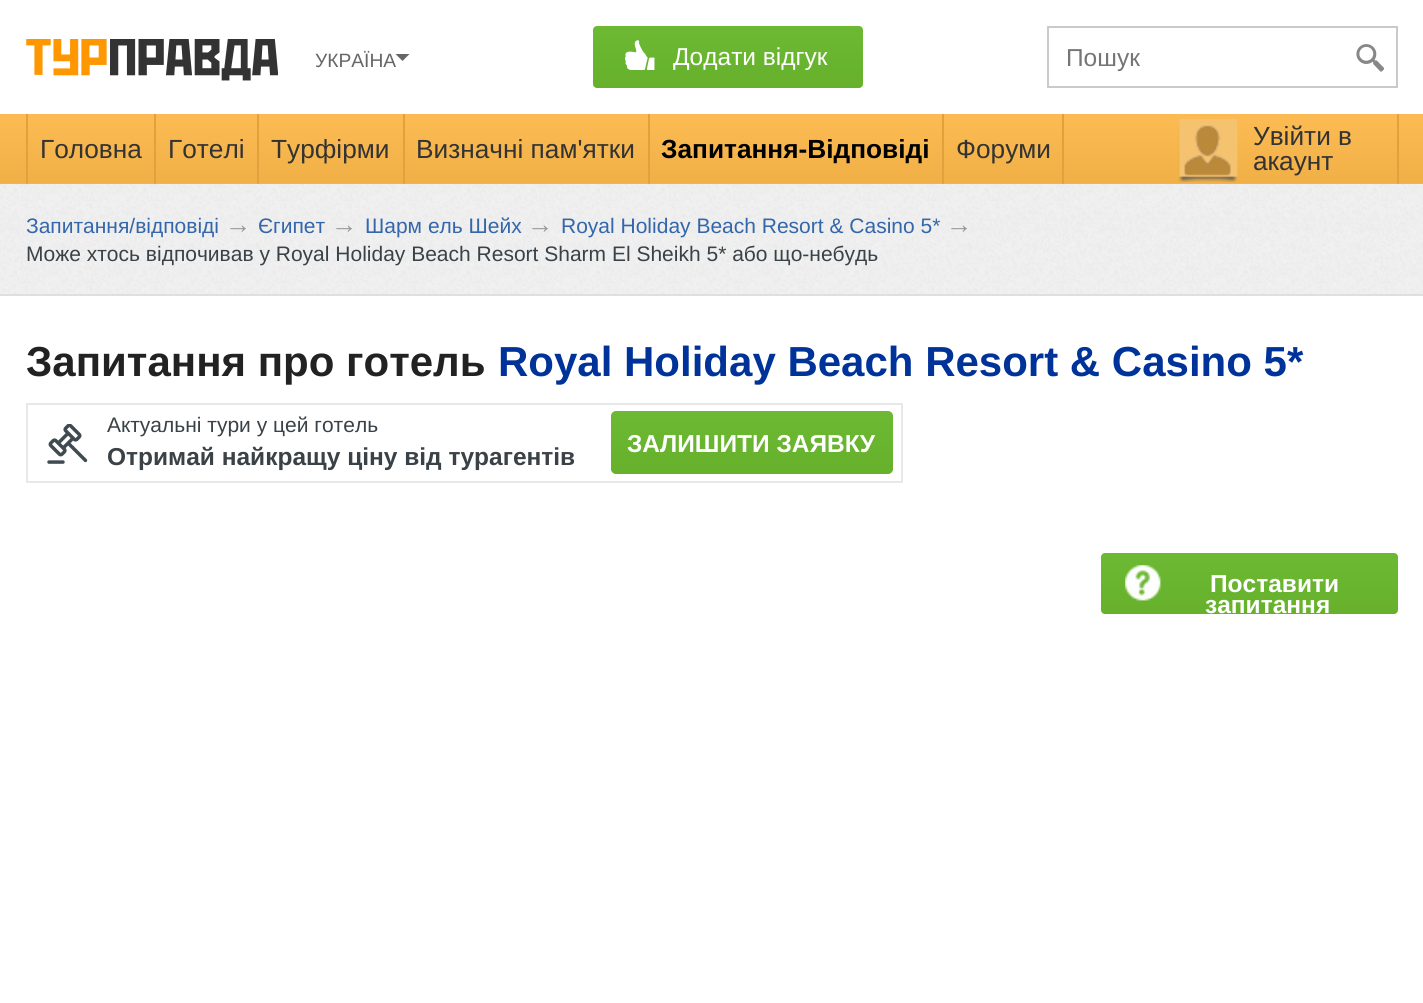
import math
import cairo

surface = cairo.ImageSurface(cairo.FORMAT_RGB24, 1423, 1003)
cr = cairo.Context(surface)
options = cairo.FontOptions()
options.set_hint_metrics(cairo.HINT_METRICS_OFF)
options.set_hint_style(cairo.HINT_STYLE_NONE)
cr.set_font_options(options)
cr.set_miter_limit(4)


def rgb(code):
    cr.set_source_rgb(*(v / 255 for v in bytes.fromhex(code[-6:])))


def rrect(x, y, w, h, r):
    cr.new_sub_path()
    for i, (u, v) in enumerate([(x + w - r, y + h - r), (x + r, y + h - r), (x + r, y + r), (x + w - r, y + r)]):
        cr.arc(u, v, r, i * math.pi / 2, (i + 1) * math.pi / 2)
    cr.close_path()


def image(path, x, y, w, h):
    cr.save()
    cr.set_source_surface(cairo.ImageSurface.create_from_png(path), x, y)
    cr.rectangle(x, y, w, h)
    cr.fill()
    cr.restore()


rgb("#ffffff")
cr.paint()
image("img/1.png", 26, 39, 252, 42)
rgb("#666666")
cr.new_path()
cr.move_to(395.5, 54)
cr.line_to(409.5, 54)
cr.line_to(402.5, 61)
cr.close_path()
cr.fill()
gradient = cairo.LinearGradient(728, 26, 728, 88)
gradient.add_color_stop_rgba(0, 0.427, 0.725, 0.2, 1)
gradient.add_color_stop_rgba(0.5, 0.412, 0.71, 0.184, 1)
gradient.add_color_stop_rgba(1, 0.404, 0.69, 0.169, 1)
cr.set_source(gradient)
rrect(593, 26, 270, 62, 4)
cr.fill()
image("img/2.png", 625, 40, 30, 30)
image("img/3.png", 1356, 44, 28, 28)
cr.rectangle(1048, 27, 349, 60)
rgb("#cacaca")
cr.stroke()
gradient = cairo.LinearGradient(712, 114, 712, 184)
gradient.add_color_stop_rgba(0.1, 0.984, 0.733, 0.322, 1)
gradient.add_color_stop_rgba(1, 0.941, 0.69, 0.275, 1)
cr.set_source(gradient)
cr.rectangle(0, 114, 1423, 70)
cr.fill()
for x, y, w, h, color in [
    (26, 114, 2, 70, "#e0a23d"),
    (154, 114, 2, 70, "#e0a23d"),
    (257, 114, 2, 70, "#e0a23d"),
    (403, 114, 2, 70, "#e0a23d"),
    (648, 114, 2, 70, "#e0a23d"),
    (1062, 114, 2, 70, "#e0a23d"),
    (942, 114, 2, 70, "#e0a23d"),
    (1397, 114, 2, 70, "#e0a23d"),
]:
    rgb(color)
    cr.rectangle(x, y, w, h)
    cr.fill()
image("img/4.png", 1178, 119, 60, 63)
image("img/5.png", 0, 183, 1423, 111)
rgb("#dfdfdf")
cr.rectangle(0, 294, 1423, 2)
cr.fill()
image("img/6.png", 47, 424, 41, 40)
cr.rectangle(27, 404, 875, 78)
rgb("#e8e8e8")
cr.stroke()
gradient = cairo.LinearGradient(752, 411, 752, 474)
gradient.add_color_stop_rgba(0, 0.427, 0.725, 0.2, 1)
gradient.add_color_stop_rgba(0.5, 0.412, 0.71, 0.184, 1)
gradient.add_color_stop_rgba(1, 0.404, 0.69, 0.169, 1)
cr.set_source(gradient)
rrect(611, 411, 282, 63, 5)
cr.fill()
gradient = cairo.LinearGradient(1250, 553, 1250, 614)
gradient.add_color_stop_rgba(0, 0.427, 0.725, 0.2, 1)
gradient.add_color_stop_rgba(0.5, 0.412, 0.71, 0.184, 1)
gradient.add_color_stop_rgba(1, 0.404, 0.69, 0.169, 1)
cr.set_source(gradient)
rrect(1101, 553, 297, 61, 4)
cr.fill()
image("img/7.png", 1125, 565, 36, 36)
cr.select_font_face("Liberation Sans")
cr.set_font_size(19.25)
rgb("#666666")
cr.move_to(315, 67)
cr.show_text("УКРАЇНА")
cr.set_font_size(24.5)
rgb("#ffffff")
cr.move_to(673, 65)
cr.show_text("Додати відгук")
rgb("#757575")
cr.move_to(1066, 66)
cr.show_text("Пошук")
cr.set_font_size(26.25)
rgb("#333333")
for x, y, s in [
    (40, 158, "Головна"),
    (168, 158, "Готелі"),
    (271, 158, "Турфірми"),
    (416, 158, "Визначні пам'ятки"),
]:
    cr.move_to(x, y)
    cr.show_text(s)
cr.select_font_face("Liberation Sans", cairo.FONT_SLANT_NORMAL, cairo.FONT_WEIGHT_BOLD)
rgb("#000000")
cr.move_to(661, 158)
cr.show_text("Запитання-Відповіді")
cr.select_font_face("Liberation Sans")
rgb("#333333")
for x, y, s in [
    (956, 158, "Форуми"),
    (1253, 145, "Увійти в"),
    (1253, 170, "акаунт"),
]:
    cr.move_to(x, y)
    cr.show_text(s)
cr.set_font_size(21)
rgb("#3366aa")
cr.move_to(26, 233)
cr.show_text("Запитання/відповіді")
cr.set_font_size(26.25)
rgb("#999999")
cr.move_to(225, 233)
cr.show_text("→")
cr.set_font_size(21)
rgb("#3366aa")
cr.move_to(258, 233)
cr.show_text("Єгипет")
cr.set_font_size(26.25)
rgb("#999999")
cr.move_to(331, 233)
cr.show_text("→")
cr.set_font_size(21)
rgb("#3366aa")
cr.move_to(365, 233)
cr.show_text("Шарм ель Шейх")
cr.set_font_size(26.25)
rgb("#999999")
cr.move_to(527, 233)
cr.show_text("→")
cr.set_font_size(21)
rgb("#3366aa")
cr.move_to(561, 233)
cr.show_text("Royal Holiday Beach Resort & Casino 5*")
cr.set_font_size(26.25)
rgb("#999999")
cr.move_to(946, 233)
cr.show_text("→")
cr.set_font_size(21)
rgb("#3a4247")
cr.move_to(26, 261)
cr.show_text("Може хтось відпочивав у Royal Holiday Beach Resort Sharm El Sheikh 5* або що-небудь")
cr.select_font_face("Liberation Sans", cairo.FONT_SLANT_NORMAL, cairo.FONT_WEIGHT_BOLD)
cr.set_font_size(42)
rgb("#222222")
cr.move_to(26, 376)
cr.show_text("Запитання про готель")
rgb("#003399")
cr.move_to(498, 376)
cr.show_text("Royal Holiday Beach Resort & Casino 5*")
cr.select_font_face("Liberation Sans")
cr.set_font_size(21)
rgb("#3a4247")
cr.move_to(107, 432)
cr.show_text("Актуальні тури у цей готель")
cr.select_font_face("Liberation Sans", cairo.FONT_SLANT_NORMAL, cairo.FONT_WEIGHT_BOLD)
cr.set_font_size(24.5)
cr.move_to(107, 465)
cr.show_text("Отримай найкращу ціну від турагентів")
rgb("#ffffff")
for x, y, s in [
    (627, 452, "ЗАЛИШИТИ ЗАЯВКУ"),
    (1210, 592, "Поставити"),
    (1205, 613, "запитання"),
]:
    cr.move_to(x, y)
    cr.show_text(s)
surface.write_to_png("page.png")
